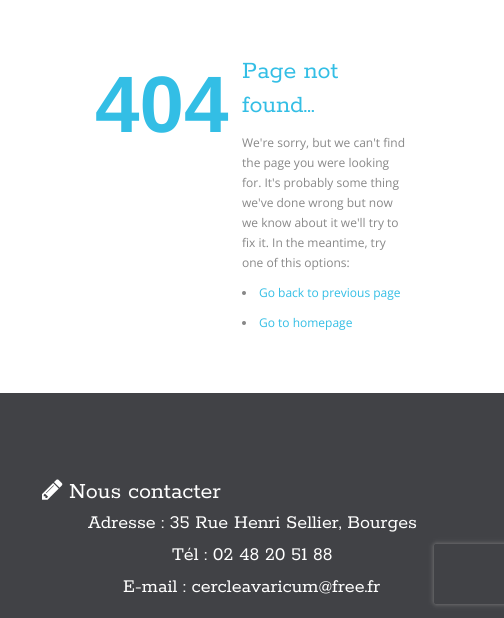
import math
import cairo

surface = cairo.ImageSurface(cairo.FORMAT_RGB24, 504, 618)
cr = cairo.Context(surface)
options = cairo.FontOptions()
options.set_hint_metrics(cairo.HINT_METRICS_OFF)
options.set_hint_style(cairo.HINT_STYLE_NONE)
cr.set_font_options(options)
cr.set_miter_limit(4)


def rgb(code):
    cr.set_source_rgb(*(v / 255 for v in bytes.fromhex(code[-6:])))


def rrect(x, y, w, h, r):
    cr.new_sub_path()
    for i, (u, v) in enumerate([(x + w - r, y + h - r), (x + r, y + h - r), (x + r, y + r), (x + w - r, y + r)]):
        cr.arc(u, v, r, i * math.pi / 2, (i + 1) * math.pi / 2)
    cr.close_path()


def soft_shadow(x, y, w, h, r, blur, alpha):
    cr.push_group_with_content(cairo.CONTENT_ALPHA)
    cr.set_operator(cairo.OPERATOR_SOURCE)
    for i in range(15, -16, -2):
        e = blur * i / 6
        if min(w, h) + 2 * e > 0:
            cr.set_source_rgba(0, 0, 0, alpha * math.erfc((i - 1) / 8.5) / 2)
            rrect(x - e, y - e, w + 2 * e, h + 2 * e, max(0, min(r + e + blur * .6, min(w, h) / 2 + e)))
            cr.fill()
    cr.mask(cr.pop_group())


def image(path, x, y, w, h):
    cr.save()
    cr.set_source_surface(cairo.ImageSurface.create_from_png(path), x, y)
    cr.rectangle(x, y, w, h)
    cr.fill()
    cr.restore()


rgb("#ffffff")
cr.paint()
rgb("#888888")
cr.arc(244, 293, 2, 0, 2 * math.pi)
cr.fill()
cr.arc(244, 323, 2, 0, 2 * math.pi)
cr.fill()
rgb("#414246")
cr.rectangle(0, 393, 504, 225)
cr.fill()
image("img/1.png", 42, 479, 21, 21)
cr.save()
cr.set_fill_rule(cairo.FILL_RULE_EVEN_ODD)
cr.new_path()
cr.move_to(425, 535)
cr.line_to(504, 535)
cr.line_to(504, 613)
cr.line_to(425, 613)
cr.close_path()
cr.move_to(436, 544)
cr.line_to(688, 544)
cr.curve_to(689, 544, 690, 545, 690, 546)
cr.line_to(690, 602)
cr.curve_to(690, 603, 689, 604, 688, 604)
cr.line_to(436, 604)
cr.curve_to(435, 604, 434, 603, 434, 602)
cr.line_to(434, 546)
cr.curve_to(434, 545, 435, 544, 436, 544)
cr.close_path()
cr.clip()
rgb("#808080")
soft_shadow(434, 544, 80, 60, 2, 2.5, 1)
cr.restore()
cr.select_font_face("Liberation Sans", cairo.FONT_SLANT_NORMAL, cairo.FONT_WEIGHT_BOLD)
cr.set_font_size(80)
rgb("#33bee5")
cr.move_to(95, 132)
cr.show_text("404")
cr.select_font_face("Rokkitt")
cr.set_font_size(26)
cr.move_to(242, 78)
cr.show_text("Page not")
cr.move_to(242, 112)
cr.show_text("found...")
cr.select_font_face("Open Sans")
cr.set_font_size(12)
rgb("#888888")
for x, y, s in [
    (242, 147, "We're sorry, but we can't find"),
    (242, 167, "the page you were looking"),
    (242, 187, "for. It's probably some thing"),
    (242, 207, "we've done wrong but now"),
    (242, 227, "we know about it we'll try to"),
    (242, 247, "fix it. In the meantime, try"),
    (242, 267, "one of this options:"),
]:
    cr.move_to(x, y)
    cr.show_text(s)
rgb("#33bee5")
cr.move_to(259, 297)
cr.show_text("Go back to previous page")
cr.move_to(259, 327)
cr.show_text("Go to homepage")
cr.select_font_face("Rokkitt")
cr.set_font_size(24)
rgb("#ffffff")
cr.move_to(69, 498)
cr.show_text("Nous contacter")
cr.set_font_size(20)
for x, y, s in [
    (88, 528, "Adresse : 35 Rue Henri Sellier, Bourges"),
    (172, 560, "Tél : 02 48 20 51 88"),
    (123, 592, "E-mail : cercleavaricum@free.fr"),
]:
    cr.move_to(x, y)
    cr.show_text(s)
surface.write_to_png("page.png")
